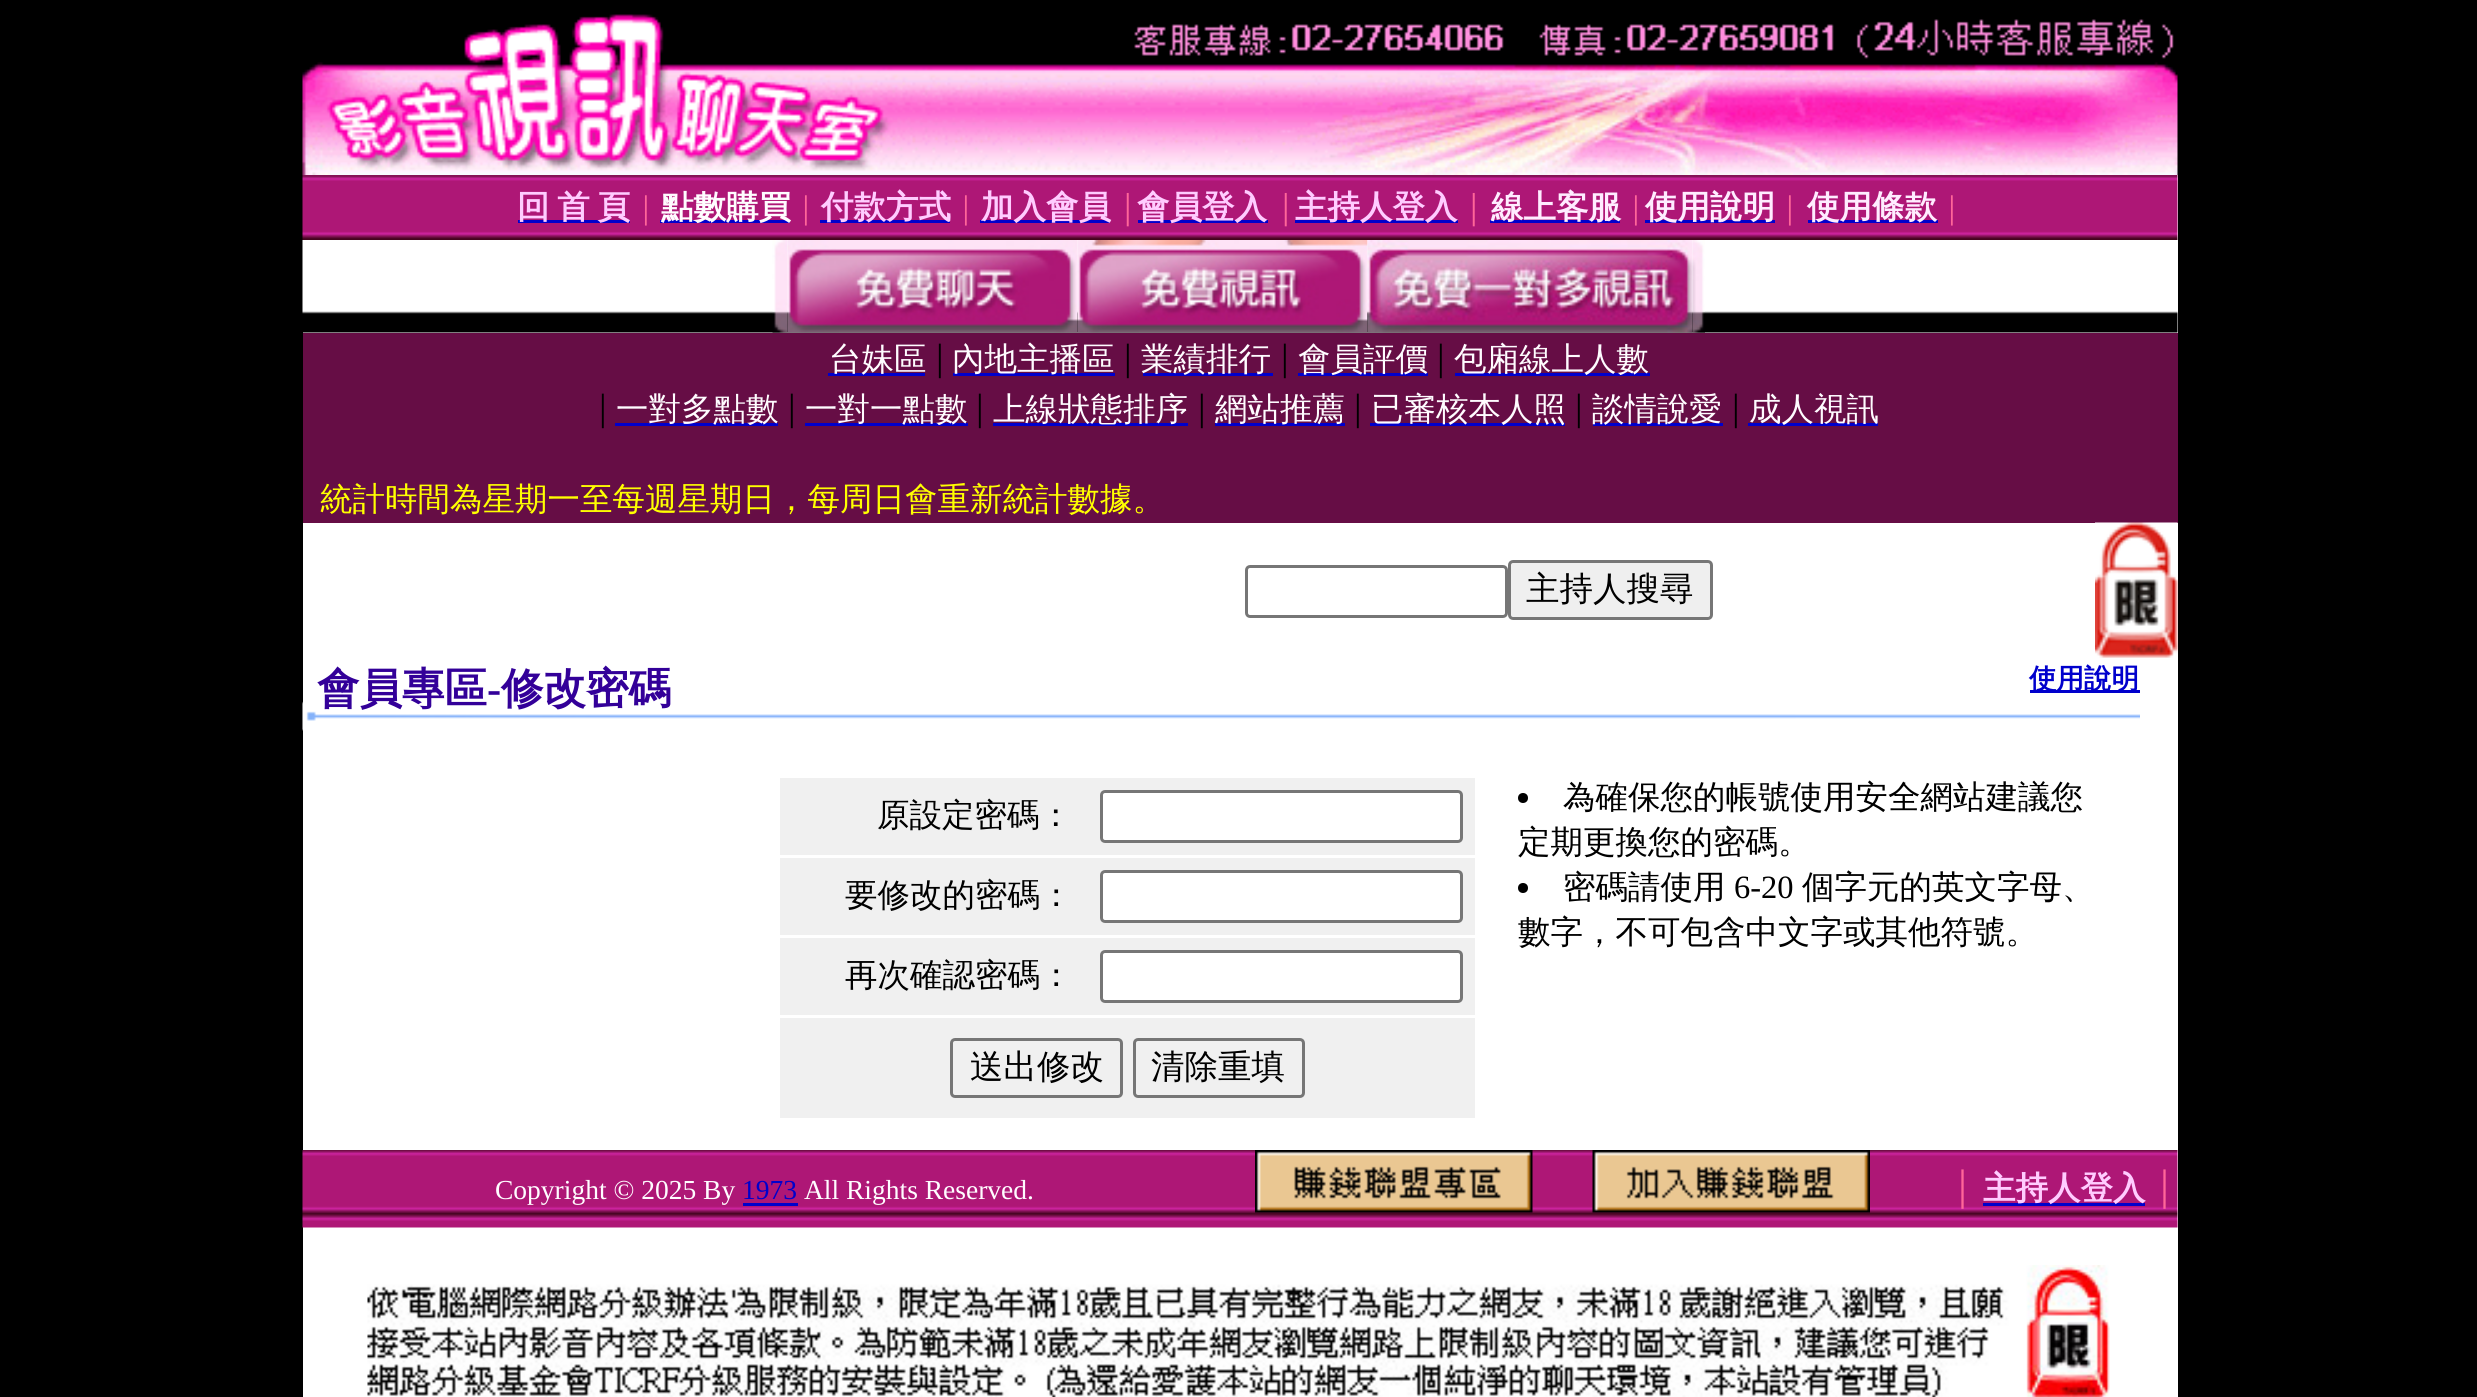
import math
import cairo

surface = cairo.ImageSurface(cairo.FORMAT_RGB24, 2477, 1397)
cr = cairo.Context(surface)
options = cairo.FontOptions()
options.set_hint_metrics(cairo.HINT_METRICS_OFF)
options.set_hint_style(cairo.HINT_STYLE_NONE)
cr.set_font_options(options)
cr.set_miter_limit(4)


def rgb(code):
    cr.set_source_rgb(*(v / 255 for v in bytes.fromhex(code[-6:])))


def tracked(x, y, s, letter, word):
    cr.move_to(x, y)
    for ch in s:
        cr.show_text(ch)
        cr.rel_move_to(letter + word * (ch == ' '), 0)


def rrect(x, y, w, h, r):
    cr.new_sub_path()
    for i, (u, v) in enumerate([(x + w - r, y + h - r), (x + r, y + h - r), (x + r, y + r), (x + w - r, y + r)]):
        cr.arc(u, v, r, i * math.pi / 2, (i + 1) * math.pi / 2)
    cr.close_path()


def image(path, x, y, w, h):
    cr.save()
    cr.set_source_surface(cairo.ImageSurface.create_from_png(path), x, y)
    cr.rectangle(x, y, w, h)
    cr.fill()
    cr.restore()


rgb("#000000")
cr.paint()
image("img/1.png", 302, 14, 1876, 161)
rgb("#ffffff")
cr.rectangle(2177, 175, 1, 65)
cr.fill()
image("img/2.png", 302, 175, 1876, 65)
for x, y, w, h, color in [
    (518, 220, 112, 3, "#0000cc"),
    (660, 220, 130, 3, "#0000cc"),
    (820, 220, 130, 3, "#0000cc"),
    (980, 220, 130, 3, "#0000cc"),
    (1138, 220, 130, 3, "#0000cc"),
    (1295, 220, 163, 3, "#0000cc"),
    (1490, 220, 130, 3, "#0000cc"),
    (1645, 220, 130, 3, "#0000cc"),
    (1808, 220, 130, 3, "#0000cc"),
    (303, 240, 1875, 93, "#ffffff"),
]:
    rgb(color)
    cr.rectangle(x, y, w, h)
    cr.fill()
image("img/3.png", 302, 240, 1876, 93)
image("img/4.png", 772, 240, 16, 93)
image("img/5.png", 787, 240, 291, 93)
image("img/6.png", 1077, 240, 291, 93)
image("img/7.png", 1367, 240, 326, 93)
image("img/8.png", 1692, 240, 13, 93)
for x, y, w, h, color in [
    (303, 333, 1875, 190, "#660d45"),
    (828, 373, 97, 3, "#0000cc"),
    (953, 373, 162, 3, "#0000cc"),
    (1143, 373, 130, 3, "#0000cc"),
    (1298, 373, 130, 3, "#0000cc"),
    (1455, 373, 195, 3, "#0000cc"),
    (615, 423, 163, 3, "#0000cc"),
    (805, 423, 163, 3, "#0000cc"),
    (993, 423, 195, 3, "#0000cc"),
    (1215, 423, 130, 3, "#0000cc"),
    (1370, 423, 195, 3, "#0000cc"),
    (1593, 423, 130, 3, "#0000cc"),
    (1748, 423, 130, 3, "#0000cc"),
    (303, 523, 1875, 874, "#ffffff"),
]:
    rgb(color)
    cr.rectangle(x, y, w, h)
    cr.fill()
rrect(1246.5, 566.5, 260, 50, 3.5)
rgb("#767676")
cr.set_line_width(3)
cr.stroke()
rgb("#efefef")
rrect(1509.5, 561.5, 202, 57, 3.5)
cr.fill_preserve()
rgb("#767676")
cr.stroke()
image("img/9.png", 2095, 522, 83, 136)
image("img/10.png", 302, 701, 1838, 30)
rgb("#0000cc")
cr.rectangle(2030, 690, 110, 3)
cr.fill()
rgb("#f0f0f0")
cr.rectangle(780, 778, 695, 77)
cr.fill()
rgb("#ffffff")
rrect(1101.5, 791.5, 360, 50, 3.5)
cr.fill_preserve()
rgb("#767676")
cr.stroke()
rgb("#f0f0f0")
cr.rectangle(780, 858, 695, 77)
cr.fill()
rgb("#ffffff")
rrect(1101.5, 871.5, 360, 50, 3.5)
cr.fill_preserve()
rgb("#767676")
cr.stroke()
rgb("#f0f0f0")
cr.rectangle(780, 938, 695, 77)
cr.fill()
rgb("#ffffff")
rrect(1101.5, 951.5, 360, 50, 3.5)
cr.fill_preserve()
rgb("#767676")
cr.stroke()
rgb("#f0f0f0")
cr.rectangle(780, 1018, 695, 100)
cr.fill()
rrect(951.5, 1039.5, 170, 57, 3.5)
rgb("#767676")
cr.stroke()
rrect(1134.5, 1039.5, 169, 57, 3.5)
cr.stroke()
rgb("#000000")
cr.arc(1523, 798, 5, 0, 2 * math.pi)
cr.fill()
cr.arc(1523, 888, 5, 0, 2 * math.pi)
cr.fill()
image("img/11.png", 302, 1150, 1876, 78)
rgb("#0000cc")
cr.rectangle(743, 1203, 55, 3)
cr.fill()
image("img/12.png", 1255, 1150, 278, 63)
image("img/13.png", 1592, 1150, 278, 63)
cr.rectangle(1983, 1203, 162, 3)
cr.fill()
image("img/14.png", 367, 1265, 1743, 132)
cr.select_font_face("WenQuanYi Zen Hei", cairo.FONT_SLANT_NORMAL, cairo.FONT_WEIGHT_BOLD)
cr.set_font_size(32.5)
rgb("#ffccff")
tracked(517, 218, "回 首 頁", 0, -2)
cr.select_font_face("Liberation Serif")
cr.set_font_size(25)
rgb("#ff6699")
cr.move_to(637, 218)
cr.show_text("│")
cr.select_font_face("WenQuanYi Zen Hei", cairo.FONT_SLANT_NORMAL, cairo.FONT_WEIGHT_BOLD)
cr.set_font_size(32.5)
rgb("#fffcff")
cr.move_to(661, 218)
cr.show_text("點數購買")
cr.select_font_face("Liberation Serif")
cr.set_font_size(25)
rgb("#ff6699")
cr.move_to(797, 218)
cr.show_text("│")
cr.select_font_face("WenQuanYi Zen Hei", cairo.FONT_SLANT_NORMAL, cairo.FONT_WEIGHT_BOLD)
cr.set_font_size(32.5)
rgb("#ffccff")
cr.move_to(821, 218)
cr.show_text("付款方式")
cr.select_font_face("Liberation Serif")
cr.set_font_size(25)
rgb("#ff6699")
cr.move_to(957, 218)
cr.show_text("│")
cr.select_font_face("WenQuanYi Zen Hei", cairo.FONT_SLANT_NORMAL, cairo.FONT_WEIGHT_BOLD)
cr.set_font_size(32.5)
rgb("#ffccff")
cr.move_to(981, 218)
cr.show_text("加入會員")
cr.select_font_face("Liberation Serif")
cr.set_font_size(27.5)
rgb("#ff6699")
cr.move_to(1118, 218)
cr.show_text("│")
cr.select_font_face("WenQuanYi Zen Hei", cairo.FONT_SLANT_NORMAL, cairo.FONT_WEIGHT_BOLD)
cr.set_font_size(32.5)
rgb("#ffccff")
cr.move_to(1137, 218)
cr.show_text("會員登入")
cr.select_font_face("Liberation Serif")
cr.set_font_size(27.5)
rgb("#ff6699")
cr.move_to(1276, 218)
cr.show_text("│")
cr.select_font_face("WenQuanYi Zen Hei", cairo.FONT_SLANT_NORMAL, cairo.FONT_WEIGHT_BOLD)
cr.set_font_size(32.5)
rgb("#ffccff")
cr.move_to(1295, 218)
cr.show_text("主持人登入")
cr.select_font_face("Liberation Serif")
cr.set_font_size(27.5)
rgb("#ff6699")
cr.move_to(1464, 218)
cr.show_text("│")
cr.select_font_face("WenQuanYi Zen Hei", cairo.FONT_SLANT_NORMAL, cairo.FONT_WEIGHT_BOLD)
cr.set_font_size(32.5)
rgb("#ffecff")
cr.move_to(1491, 218)
cr.show_text("線上客服")
cr.select_font_face("Liberation Serif")
cr.set_font_size(25)
rgb("#ff6699")
cr.move_to(1627, 218)
cr.show_text("│")
cr.select_font_face("WenQuanYi Zen Hei", cairo.FONT_SLANT_NORMAL, cairo.FONT_WEIGHT_BOLD)
cr.set_font_size(32.5)
rgb("#ffecff")
cr.move_to(1645, 218)
cr.show_text("使用說明")
cr.select_font_face("Liberation Serif")
cr.set_font_size(25)
rgb("#ff6699")
cr.move_to(1781, 218)
cr.show_text("│")
cr.select_font_face("WenQuanYi Zen Hei", cairo.FONT_SLANT_NORMAL, cairo.FONT_WEIGHT_BOLD)
cr.set_font_size(32.5)
rgb("#ffecff")
cr.move_to(1807, 218)
cr.show_text("使用條款")
cr.select_font_face("Liberation Serif")
cr.set_font_size(25)
rgb("#ff6699")
cr.move_to(1943, 218)
cr.show_text("│")
cr.select_font_face("WenQuanYi Zen Hei Medium")
cr.set_font_size(32.5)
rgb("#fffcff")
cr.move_to(829, 370)
cr.show_text("台妹區")
cr.select_font_face("Liberation Serif")
cr.set_font_size(38)
rgb("#000000")
cr.move_to(936, 370)
cr.show_text("|")
cr.select_font_face("WenQuanYi Zen Hei Medium")
cr.set_font_size(32.5)
rgb("#fffcff")
cr.move_to(952, 370)
cr.show_text("內地主播區")
cr.select_font_face("Liberation Serif")
cr.set_font_size(38)
rgb("#000000")
cr.move_to(1124, 370)
cr.show_text("|")
cr.select_font_face("WenQuanYi Zen Hei Medium")
cr.set_font_size(32.5)
rgb("#fffcff")
cr.move_to(1141, 370)
cr.show_text("業績排行")
cr.select_font_face("Liberation Serif")
cr.set_font_size(38)
rgb("#000000")
cr.move_to(1281, 370)
cr.show_text("|")
cr.select_font_face("WenQuanYi Zen Hei Medium")
cr.set_font_size(32.5)
rgb("#fffcff")
cr.move_to(1298, 370)
cr.show_text("會員評價")
cr.select_font_face("Liberation Serif")
cr.set_font_size(38)
rgb("#000000")
cr.move_to(1437, 370)
cr.show_text("|")
cr.select_font_face("WenQuanYi Zen Hei Medium")
cr.set_font_size(32.5)
rgb("#fffcff")
cr.move_to(1454, 370)
cr.show_text("包廂線上人數")
cr.select_font_face("Liberation Serif")
cr.set_font_size(38)
rgb("#000000")
cr.move_to(599, 420)
cr.show_text("|")
cr.select_font_face("WenQuanYi Zen Hei Medium")
cr.set_font_size(32.5)
rgb("#fffcff")
cr.move_to(616, 420)
cr.show_text("一對多點數")
cr.select_font_face("Liberation Serif")
cr.set_font_size(38)
rgb("#000000")
cr.move_to(788, 420)
cr.show_text("|")
cr.select_font_face("WenQuanYi Zen Hei Medium")
cr.set_font_size(32.5)
rgb("#fffcff")
cr.move_to(805, 420)
cr.show_text("一對一點數")
cr.select_font_face("Liberation Serif")
cr.set_font_size(38)
rgb("#000000")
cr.move_to(976, 420)
cr.show_text("|")
cr.select_font_face("WenQuanYi Zen Hei Medium")
cr.set_font_size(32.5)
rgb("#fffcff")
cr.move_to(993, 420)
cr.show_text("上線狀態排序")
cr.select_font_face("Liberation Serif")
cr.set_font_size(38)
rgb("#000000")
cr.move_to(1198, 420)
cr.show_text("|")
cr.select_font_face("WenQuanYi Zen Hei Medium")
cr.set_font_size(32.5)
rgb("#fffcff")
cr.move_to(1215, 420)
cr.show_text("網站推薦")
cr.select_font_face("Liberation Serif")
cr.set_font_size(38)
rgb("#000000")
cr.move_to(1354, 420)
cr.show_text("|")
cr.select_font_face("WenQuanYi Zen Hei Medium")
cr.set_font_size(32.5)
rgb("#fffcff")
cr.move_to(1371, 420)
cr.show_text("已審核本人照")
cr.select_font_face("Liberation Serif")
cr.set_font_size(38)
rgb("#000000")
cr.move_to(1575, 420)
cr.show_text("|")
cr.select_font_face("WenQuanYi Zen Hei Medium")
cr.set_font_size(32.5)
rgb("#fffcff")
cr.move_to(1592, 420)
cr.show_text("談情說愛")
cr.select_font_face("Liberation Serif")
cr.set_font_size(38)
rgb("#000000")
cr.move_to(1732, 420)
cr.show_text("|")
cr.select_font_face("WenQuanYi Zen Hei Medium")
cr.set_font_size(32.5)
rgb("#fffcff")
cr.move_to(1749, 420)
cr.show_text("成人視訊")
rgb("#ffff00")
cr.move_to(320, 510)
cr.show_text("統計時間為星期一至每週星期日，每周日會重新統計數據。")
cr.set_font_size(33.5)
rgb("#000000")
cr.move_to(1526, 600)
cr.show_text("主持人搜尋")
cr.select_font_face("WenQuanYi Zen Hei", cairo.FONT_SLANT_NORMAL, cairo.FONT_WEIGHT_BOLD)
cr.set_font_size(42.5)
rgb("#330099")
cr.move_to(317, 703)
cr.show_text("會員專區")
cr.select_font_face("Liberation Serif", cairo.FONT_SLANT_NORMAL, cairo.FONT_WEIGHT_BOLD)
cr.move_to(487, 703)
cr.show_text("-")
cr.select_font_face("WenQuanYi Zen Hei", cairo.FONT_SLANT_NORMAL, cairo.FONT_WEIGHT_BOLD)
cr.move_to(501, 703)
cr.show_text("修改密碼")
cr.set_font_size(27.5)
rgb("#0000cc")
cr.move_to(2029, 688)
cr.show_text("使用說明")
cr.select_font_face("WenQuanYi Zen Hei Medium")
cr.set_font_size(32.5)
rgb("#000000")
for x, y, s in [
    (877, 826, "原設定密碼："),
    (845, 906, "要修改的密碼："),
    (845, 986, "再次確認密碼："),
]:
    cr.move_to(x, y)
    cr.show_text(s)
cr.set_font_size(33.5)
cr.move_to(970, 1078)
cr.show_text("送出修改")
cr.move_to(1151, 1078)
cr.show_text("清除重填")
cr.set_font_size(32.5)
for x, y, s in [
    (1563, 808, "為確保您的帳號使用安全網站建議您"),
    (1518, 853, "定期更換您的密碼。"),
    (1563, 898, "密碼請使用"),
]:
    cr.move_to(x, y)
    cr.show_text(s)
cr.select_font_face("Liberation Serif")
cr.move_to(1734, 898)
cr.show_text("6-20")
cr.select_font_face("WenQuanYi Zen Hei Medium")
cr.move_to(1802, 898)
cr.show_text("個字元的英文字母、")
cr.move_to(1518, 943)
cr.show_text("數字，不可包含中文字或其他符號。")
cr.select_font_face("Liberation Serif")
cr.set_font_size(27.5)
rgb("#fffcff")
cr.move_to(495, 1199)
cr.show_text("Copyright © 2025 By")
rgb("#0000cc")
cr.move_to(742, 1199)
cr.show_text("1973")
rgb("#fffcff")
cr.move_to(804, 1199)
cr.show_text("All Rights Reserved.")
cr.set_font_size(32.5)
rgb("#ff6699")
cr.move_to(1951, 1199)
cr.show_text("│")
cr.select_font_face("WenQuanYi Zen Hei", cairo.FONT_SLANT_NORMAL, cairo.FONT_WEIGHT_BOLD)
rgb("#ffccff")
cr.move_to(1983, 1199)
cr.show_text("主持人登入")
cr.select_font_face("Liberation Serif")
rgb("#ff6699")
cr.move_to(2153, 1199)
cr.show_text("│")
surface.write_to_png("page.png")
